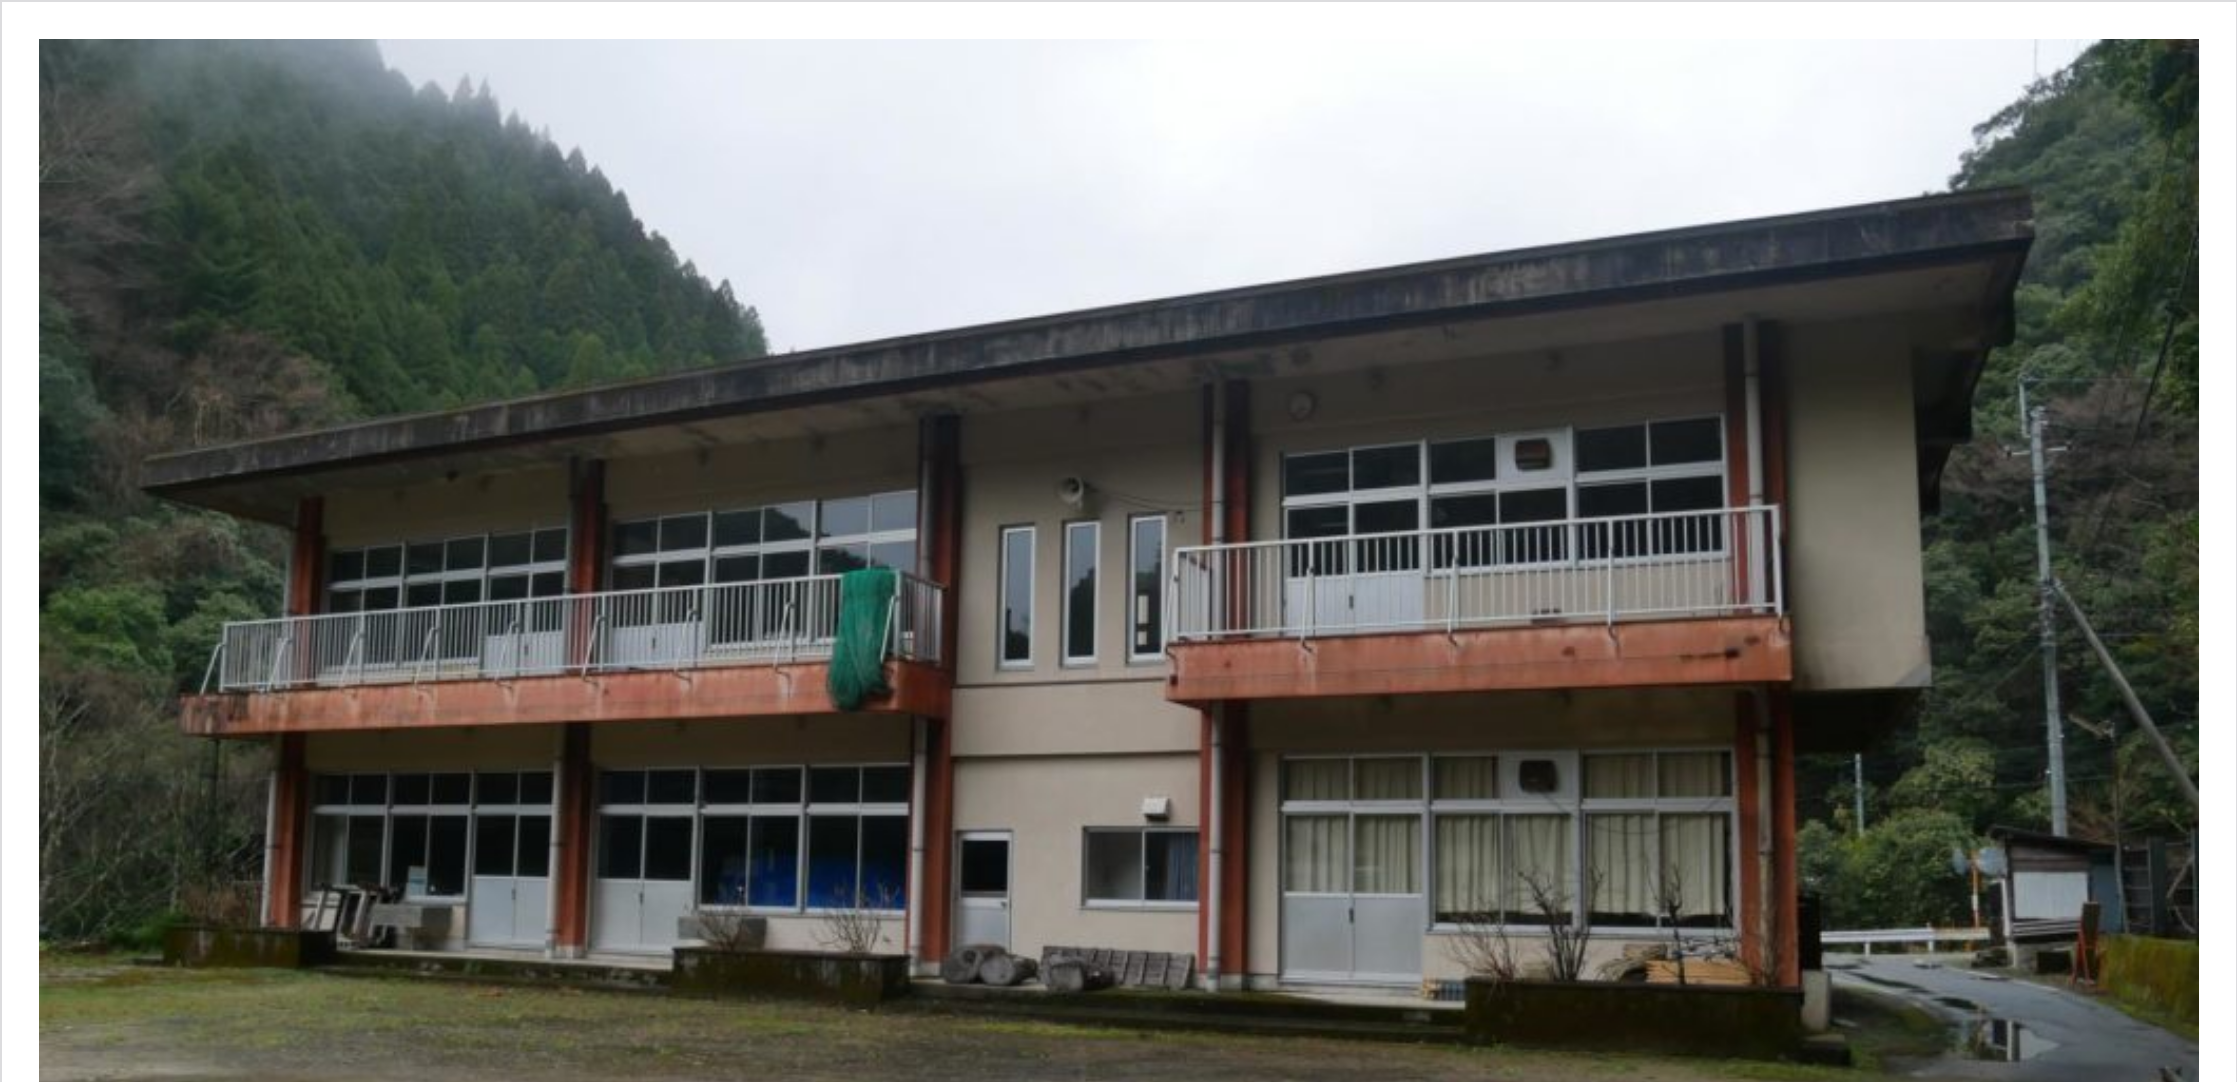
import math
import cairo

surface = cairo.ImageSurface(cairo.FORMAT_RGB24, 2237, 1082)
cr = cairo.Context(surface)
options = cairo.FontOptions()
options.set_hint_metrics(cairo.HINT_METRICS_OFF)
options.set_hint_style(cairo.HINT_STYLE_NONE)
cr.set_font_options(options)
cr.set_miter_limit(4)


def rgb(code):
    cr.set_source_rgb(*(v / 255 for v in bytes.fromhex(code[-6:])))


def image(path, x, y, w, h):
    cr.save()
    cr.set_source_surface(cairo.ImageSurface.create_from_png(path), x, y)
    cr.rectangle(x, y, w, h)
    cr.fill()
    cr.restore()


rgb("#ffffff")
cr.paint()
cr.rectangle(1, 1, 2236, 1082)
rgb("#dcdcde")
cr.stroke()
image("img/1.png", 39, 39, 2160, 1043)
surface.write_to_png("page.png")
